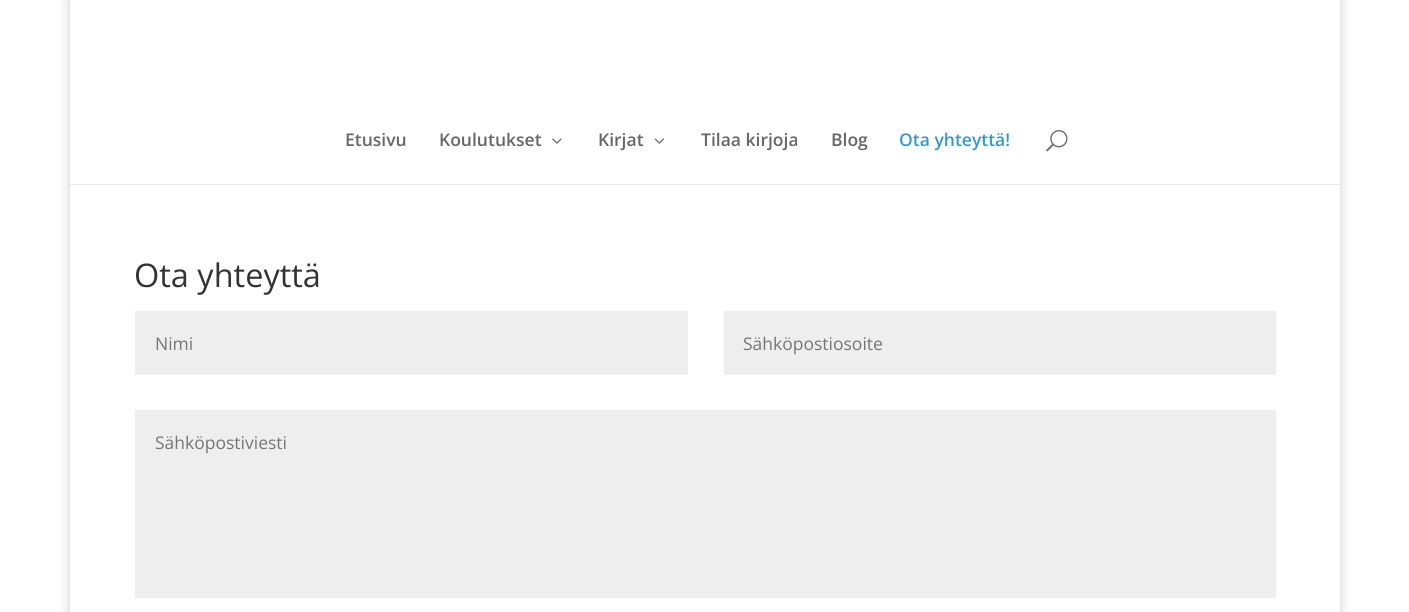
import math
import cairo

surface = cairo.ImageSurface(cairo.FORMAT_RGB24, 1409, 612)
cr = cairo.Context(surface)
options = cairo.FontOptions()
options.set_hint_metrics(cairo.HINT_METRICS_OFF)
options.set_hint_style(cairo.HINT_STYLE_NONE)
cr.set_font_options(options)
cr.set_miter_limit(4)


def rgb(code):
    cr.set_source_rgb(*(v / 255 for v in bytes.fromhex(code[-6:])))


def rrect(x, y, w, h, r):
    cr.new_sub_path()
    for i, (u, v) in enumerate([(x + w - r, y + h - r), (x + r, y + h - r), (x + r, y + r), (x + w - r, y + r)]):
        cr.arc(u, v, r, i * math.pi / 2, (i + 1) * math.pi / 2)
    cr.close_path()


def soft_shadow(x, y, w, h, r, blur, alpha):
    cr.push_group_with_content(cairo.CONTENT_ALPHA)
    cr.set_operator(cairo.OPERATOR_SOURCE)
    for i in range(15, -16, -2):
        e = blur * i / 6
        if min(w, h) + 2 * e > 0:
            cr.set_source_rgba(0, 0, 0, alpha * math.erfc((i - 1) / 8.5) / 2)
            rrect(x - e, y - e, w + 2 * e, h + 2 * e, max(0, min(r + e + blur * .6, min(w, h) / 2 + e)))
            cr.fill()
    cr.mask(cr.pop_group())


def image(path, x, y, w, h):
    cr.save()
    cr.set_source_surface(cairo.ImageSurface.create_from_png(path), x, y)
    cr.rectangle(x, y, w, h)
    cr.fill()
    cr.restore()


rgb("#ffffff")
cr.paint()
cr.save()
cr.set_fill_rule(cairo.FILL_RULE_EVEN_ODD)
cr.new_path()
cr.move_to(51, 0)
cr.line_to(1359, 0)
cr.line_to(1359, 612)
cr.line_to(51, 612)
cr.close_path()
cr.move_to(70, -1)
cr.line_to(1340, -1)
cr.line_to(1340, 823)
cr.line_to(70, 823)
cr.close_path()
cr.clip()
rgb("#000000")
soft_shadow(70, -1, 1270, 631, 0, 6, 0.2)
cr.restore()
rgb("#e6e6e6")
cr.rectangle(70, 184, 1270, 1)
cr.fill()
image("img/1.png", 552, 138, 10, 6)
image("img/2.png", 654, 138, 10, 6)
image("img/3.png", 1046, 130, 22, 22)
for x, y, w, h, color in [
    (135, 311, 553, 64, "#eeeeee"),
    (724, 311, 552, 64, "#eeeeee"),
    (135, 410, 1141, 188, "#eeeeee"),
]:
    rgb(color)
    cr.rectangle(x, y, w, h)
    cr.fill()
cr.select_font_face("Open Sans SemiBold")
cr.set_font_size(17.5)
rgb("#666666")
for x, y, s in [
    (345, 146, "Etusivu"),
    (439, 146, "Koulutukset"),
    (598, 146, "Kirjat"),
    (701, 146, "Tilaa kirjoja"),
    (831, 146, "Blog"),
]:
    cr.move_to(x, y)
    cr.show_text(s)
rgb("#3399cc")
cr.move_to(899, 146)
cr.show_text("Ota yhteyttä!")
cr.select_font_face("Open Sans")
cr.set_font_size(32.5)
rgb("#333333")
cr.move_to(134, 287)
cr.show_text("Ota yhteyttä")
cr.set_font_size(17.5)
rgb("#757575")
for x, y, s in [
    (155, 350, "Nimi"),
    (743, 350, "Sähköpostiosoite"),
    (155, 449, "Sähköpostiviesti"),
]:
    cr.move_to(x, y)
    cr.show_text(s)
surface.write_to_png("page.png")
